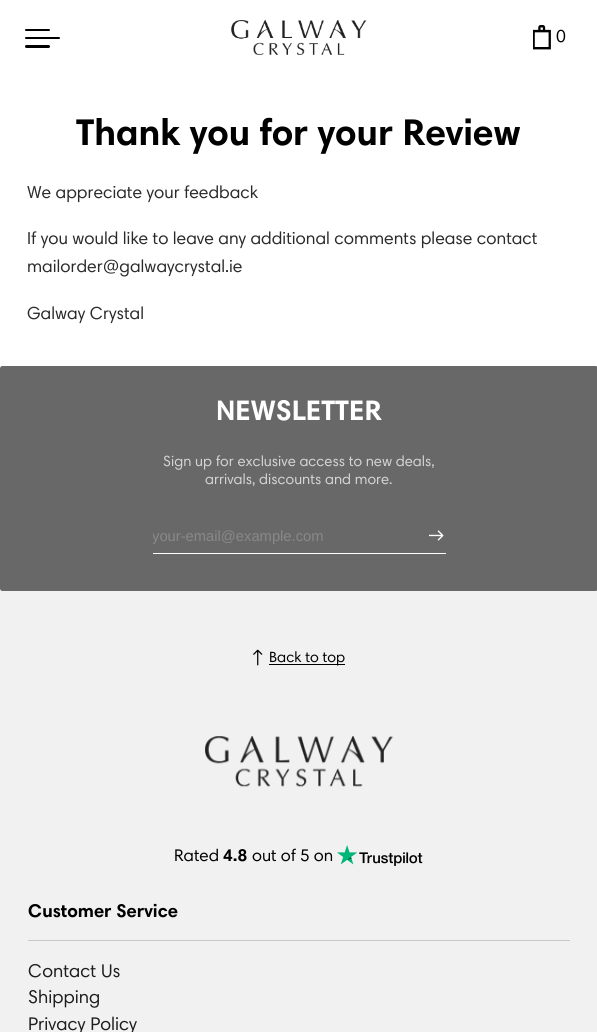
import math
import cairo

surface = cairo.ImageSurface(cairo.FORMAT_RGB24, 597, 1032)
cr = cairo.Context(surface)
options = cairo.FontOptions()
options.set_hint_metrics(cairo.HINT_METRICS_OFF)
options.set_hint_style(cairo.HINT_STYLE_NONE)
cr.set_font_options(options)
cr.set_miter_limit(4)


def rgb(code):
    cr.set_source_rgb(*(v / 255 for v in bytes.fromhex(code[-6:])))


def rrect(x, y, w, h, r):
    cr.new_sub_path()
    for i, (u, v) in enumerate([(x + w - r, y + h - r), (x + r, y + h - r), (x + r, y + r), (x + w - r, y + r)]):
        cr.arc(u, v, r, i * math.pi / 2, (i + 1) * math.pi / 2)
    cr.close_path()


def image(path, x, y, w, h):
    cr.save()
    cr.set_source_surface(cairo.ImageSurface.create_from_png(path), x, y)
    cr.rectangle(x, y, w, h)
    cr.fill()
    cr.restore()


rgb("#ffffff")
cr.paint()
rgb("#000000")
rrect(25, 29, 25, 2, 1)
cr.fill()
rrect(25, 45, 25, 3, 1.5)
cr.fill()
rrect(25, 37, 35, 2, 1)
cr.fill()
image("img/1.png", 231, 20, 136, 35)
image("img/2.png", 533, 25, 18, 25)
rgb("#f1f1f1")
cr.rectangle(0, 366, 597, 666)
cr.fill()
rgb("#686868")
rrect(0, 366, 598, 225, 2.5)
cr.fill()
rgb("#ffffff")
cr.rectangle(153, 553, 293, 1)
cr.fill()
image("img/3.png", 429, 530, 15, 11)
image("img/4.png", 253, 649, 10, 17)
rgb("#000000")
cr.rectangle(269, 664, 76, 1)
cr.fill()
image("img/5.png", 205, 736, 188, 51)
image("img/6.png", 337, 845, 86, 21)
rgb("#c8c8c8")
cr.rectangle(28, 940, 542, 1)
cr.fill()
cr.select_font_face("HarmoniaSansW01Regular")
cr.set_font_size(17.5)
rgb("#000000")
cr.move_to(556, 42)
cr.show_text("0")
cr.select_font_face("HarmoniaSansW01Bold", cairo.FONT_SLANT_NORMAL, cairo.FONT_WEIGHT_BOLD)
cr.set_font_size(37.5)
cr.move_to(76, 145)
cr.show_text("Thank you for your Review")
cr.select_font_face("HarmoniaSansW01Regular")
cr.set_font_size(17.5)
rgb("#2b2a2a")
for x, y, s in [
    (27, 198, "We appreciate your feedback"),
    (27, 244, "If you would like to leave any additional comments please contact"),
    (27, 272, "mailorder@galwaycrystal.ie"),
    (27, 319, "Galway Crystal"),
]:
    cr.move_to(x, y)
    cr.show_text(s)
cr.select_font_face("HarmoniaSansW01Bold", cairo.FONT_SLANT_NORMAL, cairo.FONT_WEIGHT_BOLD)
cr.set_font_size(28.5)
rgb("#ffffff")
cr.move_to(216, 420)
cr.show_text("NEWSLETTER")
cr.select_font_face("HarmoniaSansW01Regular")
cr.set_font_size(14.75)
rgb("#d6d6d6")
cr.move_to(163, 466)
cr.show_text("Sign up for exclusive access to new deals,")
cr.move_to(205, 484)
cr.show_text("arrivals, discounts and more.")
cr.save()
cr.rectangle(153, 528, 293, 17)
cr.clip()
cr.select_font_face("Liberation Sans")
rgb("#888888")
cr.move_to(152, 541)
cr.show_text("your-email@example.com")
cr.restore()
cr.set_font_size(15)
rgb("#000000")
cr.move_to(269, 662)
cr.show_text("Back to top")
cr.set_font_size(17)
cr.move_to(174, 861)
cr.show_text("Rated")
cr.select_font_face("HarmoniaSansW01Bold", cairo.FONT_SLANT_NORMAL, cairo.FONT_WEIGHT_BOLD)
cr.move_to(223, 861)
cr.show_text("4.8")
cr.select_font_face("HarmoniaSansW01Regular")
cr.move_to(252, 861)
cr.show_text("out of 5 on")
cr.select_font_face("HarmoniaSansW01Bold", cairo.FONT_SLANT_NORMAL, cairo.FONT_WEIGHT_BOLD)
cr.set_font_size(18.5)
cr.move_to(28, 917)
cr.show_text("Customer Service")
cr.select_font_face("HarmoniaSansW01Regular")
rgb("#1e1e1e")
for x, y, s in [
    (28, 977, "Contact Us"),
    (28, 1003, "Shipping"),
    (28, 1030, "Privacy Policy"),
]:
    cr.move_to(x, y)
    cr.show_text(s)
surface.write_to_png("page.png")
